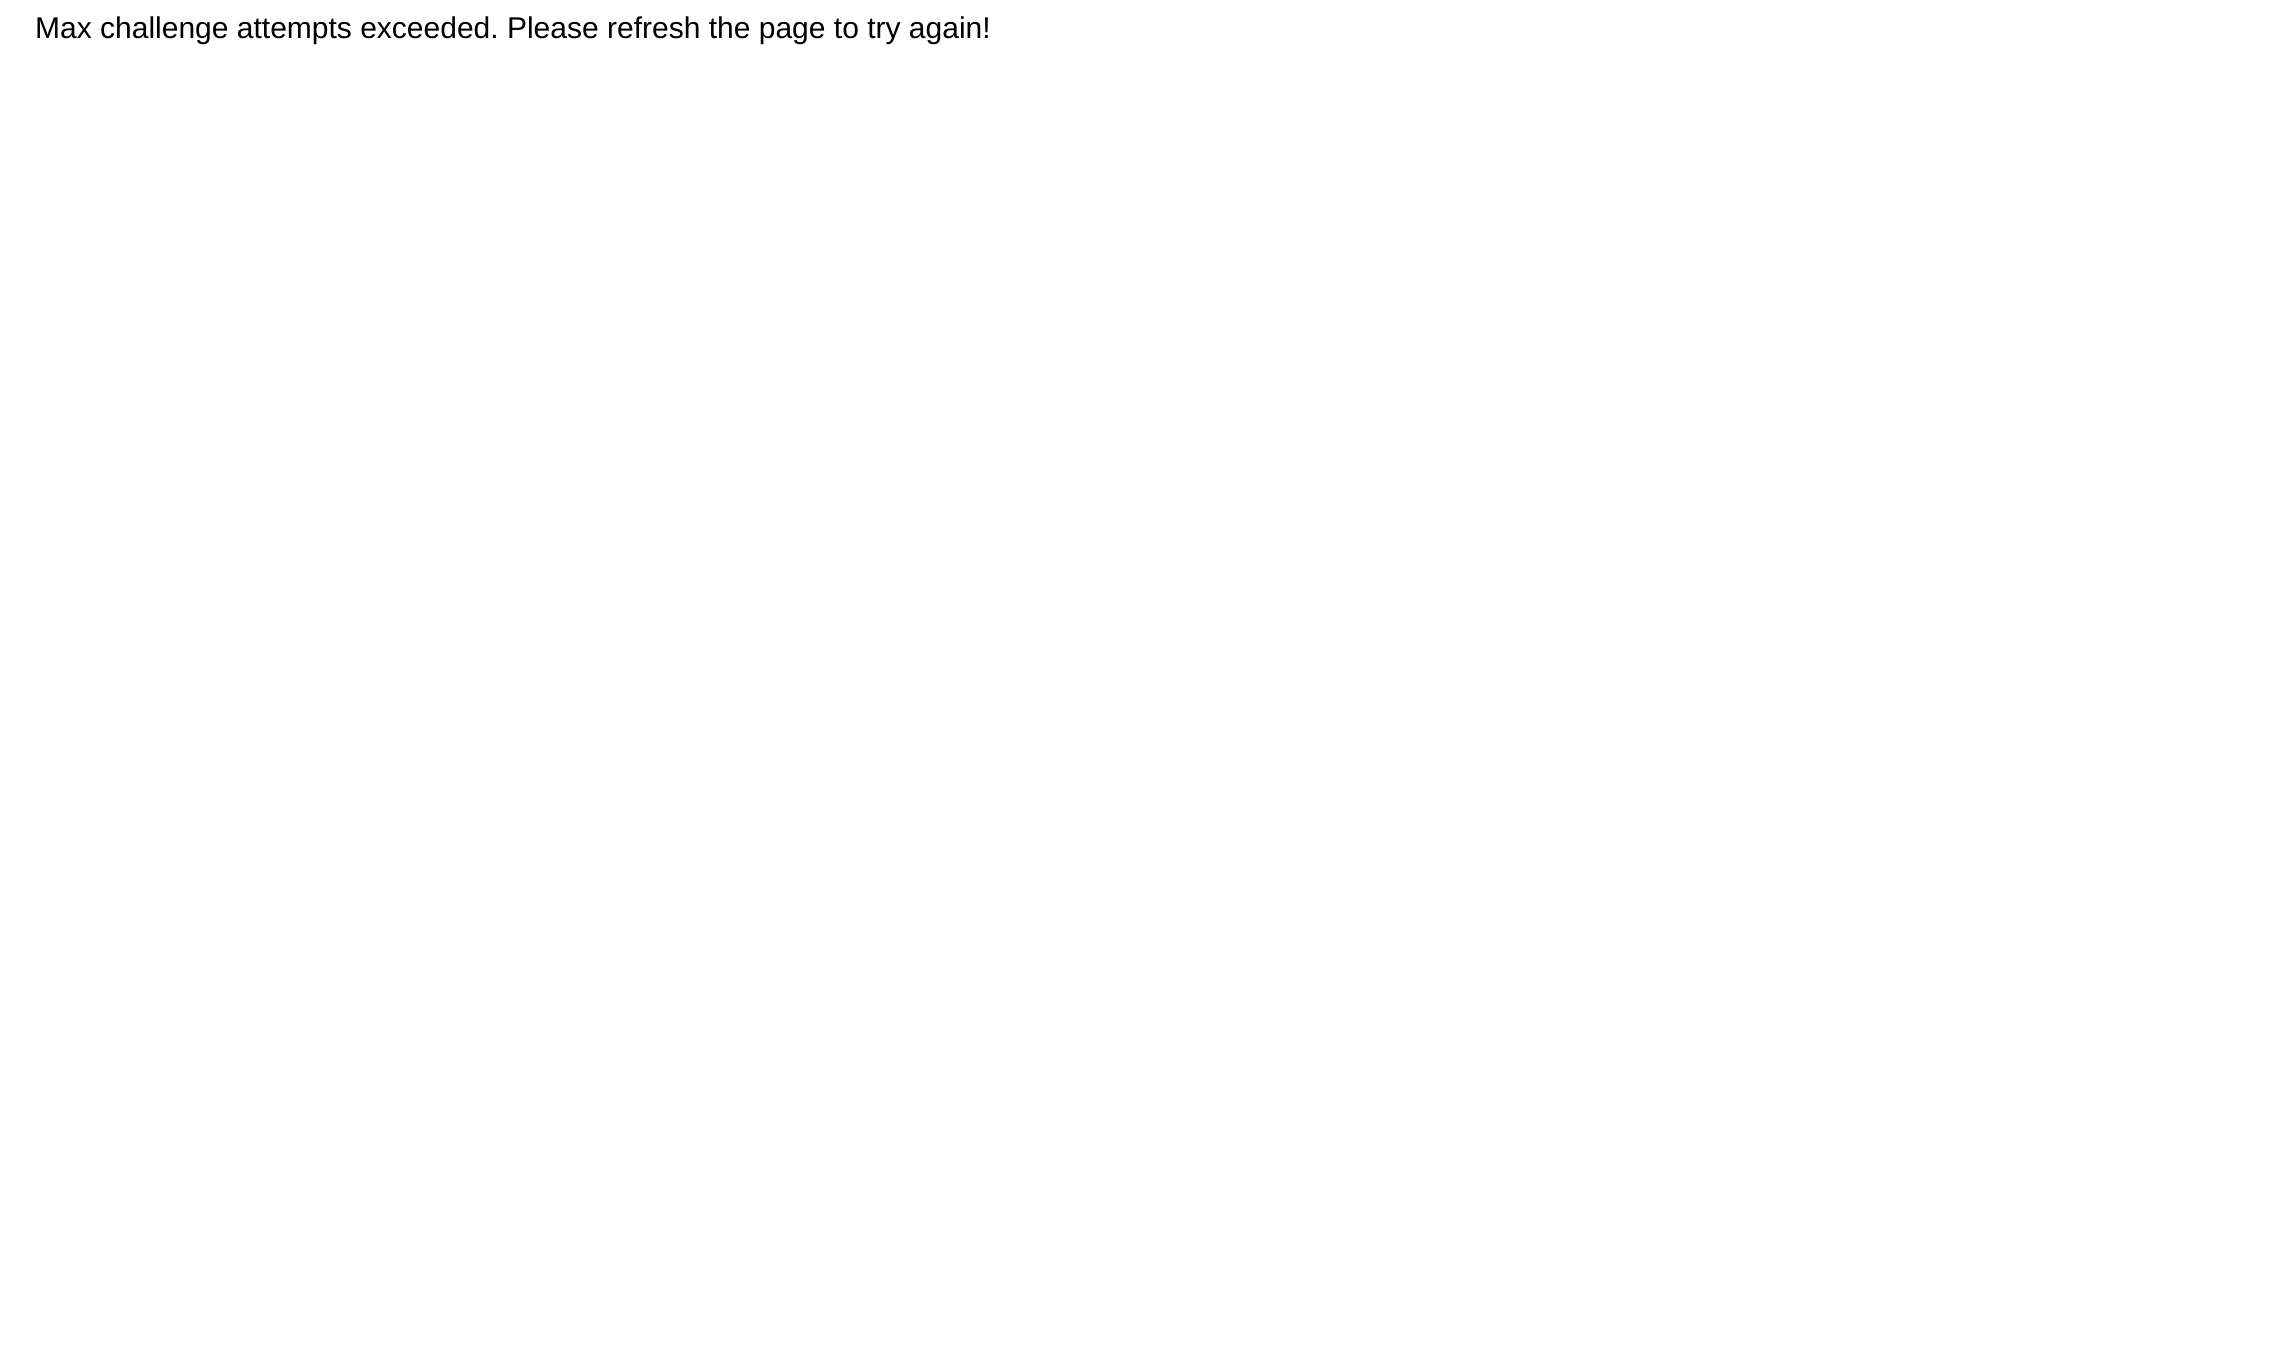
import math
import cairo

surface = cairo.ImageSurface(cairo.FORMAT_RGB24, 2293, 1368)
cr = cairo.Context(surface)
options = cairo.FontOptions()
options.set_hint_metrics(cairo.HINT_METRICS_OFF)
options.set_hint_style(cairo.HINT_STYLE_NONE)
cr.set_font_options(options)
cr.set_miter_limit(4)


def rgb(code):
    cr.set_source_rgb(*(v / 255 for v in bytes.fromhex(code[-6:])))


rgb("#ffffff")
cr.paint()
cr.select_font_face("Liberation Sans")
cr.set_font_size(30)
rgb("#000000")
cr.move_to(35, 38)
cr.show_text("Max challenge attempts exceeded. Please refresh the page to try again!")
surface.write_to_png("page.png")
